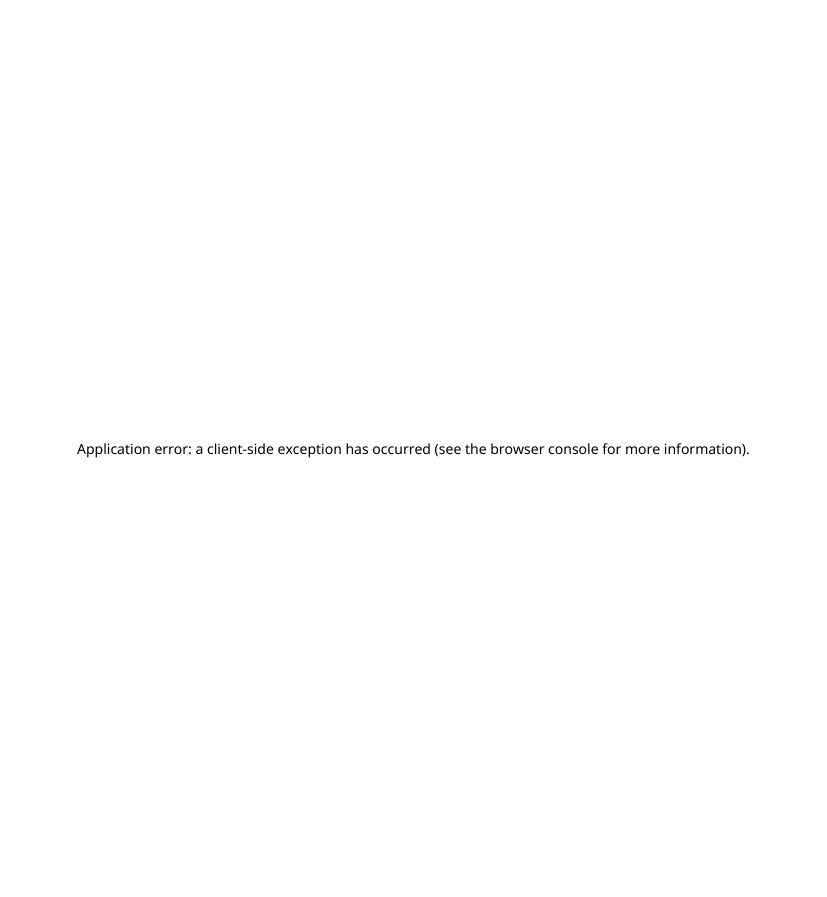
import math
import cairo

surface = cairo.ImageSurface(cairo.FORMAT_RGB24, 827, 897)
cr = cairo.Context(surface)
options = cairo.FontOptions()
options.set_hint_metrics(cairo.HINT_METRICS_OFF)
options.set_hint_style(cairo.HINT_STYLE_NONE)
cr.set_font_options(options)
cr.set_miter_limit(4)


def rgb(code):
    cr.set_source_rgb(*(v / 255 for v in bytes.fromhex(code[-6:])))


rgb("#ffffff")
cr.paint()
cr.select_font_face("Noto Sans")
cr.set_font_size(14)
rgb("#000000")
cr.move_to(77, 454)
cr.show_text("Application error: a client-side exception has occurred (see the browser console for more information).")
surface.write_to_png("page.png")
